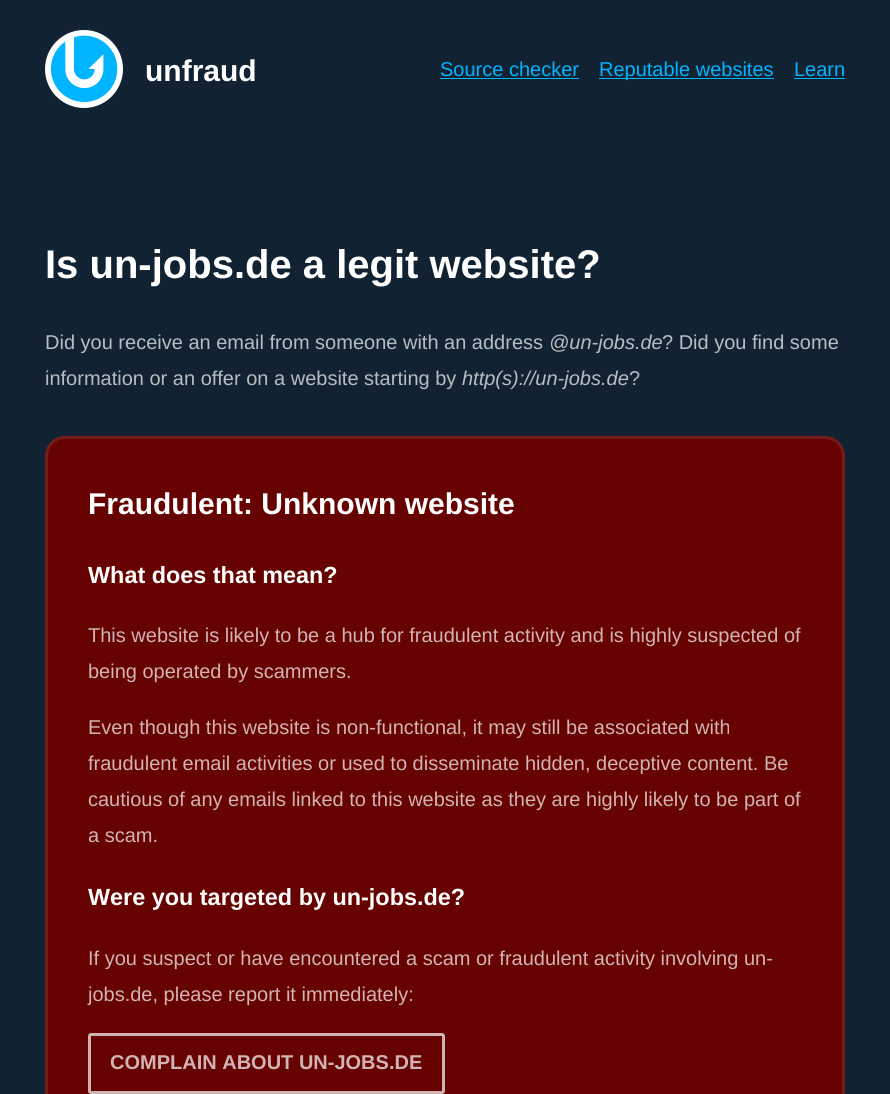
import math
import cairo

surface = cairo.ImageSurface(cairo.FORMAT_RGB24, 890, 1094)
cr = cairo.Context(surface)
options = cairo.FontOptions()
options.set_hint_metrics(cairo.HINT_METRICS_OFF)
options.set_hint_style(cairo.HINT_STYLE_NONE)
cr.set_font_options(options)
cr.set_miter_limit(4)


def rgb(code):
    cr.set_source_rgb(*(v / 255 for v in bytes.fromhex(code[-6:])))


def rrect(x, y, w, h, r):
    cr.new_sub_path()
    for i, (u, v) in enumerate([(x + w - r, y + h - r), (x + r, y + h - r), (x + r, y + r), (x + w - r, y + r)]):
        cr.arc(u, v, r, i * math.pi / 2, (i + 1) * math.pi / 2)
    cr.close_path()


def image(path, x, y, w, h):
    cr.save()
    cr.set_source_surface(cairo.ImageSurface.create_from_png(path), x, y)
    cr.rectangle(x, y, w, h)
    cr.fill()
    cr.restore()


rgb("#112233")
cr.paint()
image("img/1.png", 45, 30, 78, 78)
for x, y, w, h, color in [
    (440, 78, 139, 1, "#00b4ff"),
    (599, 78, 175, 1, "#00b4ff"),
    (794, 78, 51, 1, "#00b4ff"),
]:
    rgb(color)
    cr.rectangle(x, y, w, h)
    cr.fill()
rgb("#660200")
rrect(45, 436, 800, 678, 20)
cr.fill()
rrect(46.5, 437.5, 797, 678, 18.5)
cr.set_source_rgba(1, 1, 1, 0.1)
cr.set_line_width(3)
cr.stroke()
rrect(89.5, 1034.5, 354, 58, 1.5)
rgb("#d1b3b3")
cr.stroke()
cr.select_font_face("Liberation Sans", cairo.FONT_SLANT_NORMAL, cairo.FONT_WEIGHT_BOLD)
cr.set_font_size(30)
rgb("#ffffff")
cr.move_to(145, 81)
cr.show_text("unfraud")
cr.select_font_face("Liberation Sans")
cr.set_font_size(20)
rgb("#00b4ff")
for x, y, s in [
    (440, 76, "Source checker"),
    (599, 76, "Reputable websites"),
    (794, 76, "Learn"),
]:
    cr.move_to(x, y)
    cr.show_text(s)
cr.select_font_face("Liberation Sans", cairo.FONT_SLANT_NORMAL, cairo.FONT_WEIGHT_BOLD)
cr.set_font_size(40)
rgb("#ffffff")
cr.move_to(45, 278)
cr.show_text("Is un-jobs.de a legit website?")
cr.select_font_face("Liberation Sans")
cr.set_font_size(20)
rgb("#b8bdc2")
cr.move_to(45, 349)
cr.show_text("Did you receive an email from someone with an address")
cr.select_font_face("Liberation Sans", cairo.FONT_SLANT_ITALIC)
cr.move_to(549, 349)
cr.show_text("@un-jobs.de")
cr.select_font_face("Liberation Sans")
cr.move_to(662, 349)
cr.show_text("? Did you find some")
cr.move_to(45, 385)
cr.show_text("information or an offer on a website starting by")
cr.select_font_face("Liberation Sans", cairo.FONT_SLANT_ITALIC)
cr.move_to(462, 385)
cr.show_text("http(s)://un-jobs.de")
cr.select_font_face("Liberation Sans")
cr.move_to(629, 385)
cr.show_text("?")
cr.select_font_face("Liberation Sans", cairo.FONT_SLANT_NORMAL, cairo.FONT_WEIGHT_BOLD)
cr.set_font_size(30)
rgb("#ffffff")
cr.move_to(88, 514)
cr.show_text("Fraudulent: Unknown website")
cr.set_font_size(23.4)
cr.move_to(88, 583)
cr.show_text("What does that mean?")
cr.select_font_face("Liberation Sans")
cr.set_font_size(20)
rgb("#d1b3b3")
for x, y, s in [
    (88, 642, "This website is likely to be a hub for fraudulent activity and is highly suspected of"),
    (88, 678, "being operated by scammers."),
    (88, 734, "Even though this website is non-functional, it may still be associated with"),
    (88, 770, "fraudulent email activities or used to disseminate hidden, deceptive content. Be"),
    (88, 806, "cautious of any emails linked to this website as they are highly likely to be part of"),
    (88, 842, "a scam."),
]:
    cr.move_to(x, y)
    cr.show_text(s)
cr.select_font_face("Liberation Sans", cairo.FONT_SLANT_NORMAL, cairo.FONT_WEIGHT_BOLD)
cr.set_font_size(23.4)
rgb("#ffffff")
cr.move_to(88, 905)
cr.show_text("Were you targeted by un-jobs.de?")
cr.select_font_face("Liberation Sans")
cr.set_font_size(20)
rgb("#d1b3b3")
cr.move_to(88, 965)
cr.show_text("If you suspect or have encountered a scam or fraudulent activity involving un-")
cr.move_to(88, 1001)
cr.show_text("jobs.de, please report it immediately:")
cr.select_font_face("Liberation Sans", cairo.FONT_SLANT_NORMAL, cairo.FONT_WEIGHT_BOLD)
cr.move_to(110, 1069)
cr.show_text("COMPLAIN ABOUT UN-JOBS.DE")
surface.write_to_png("page.png")
